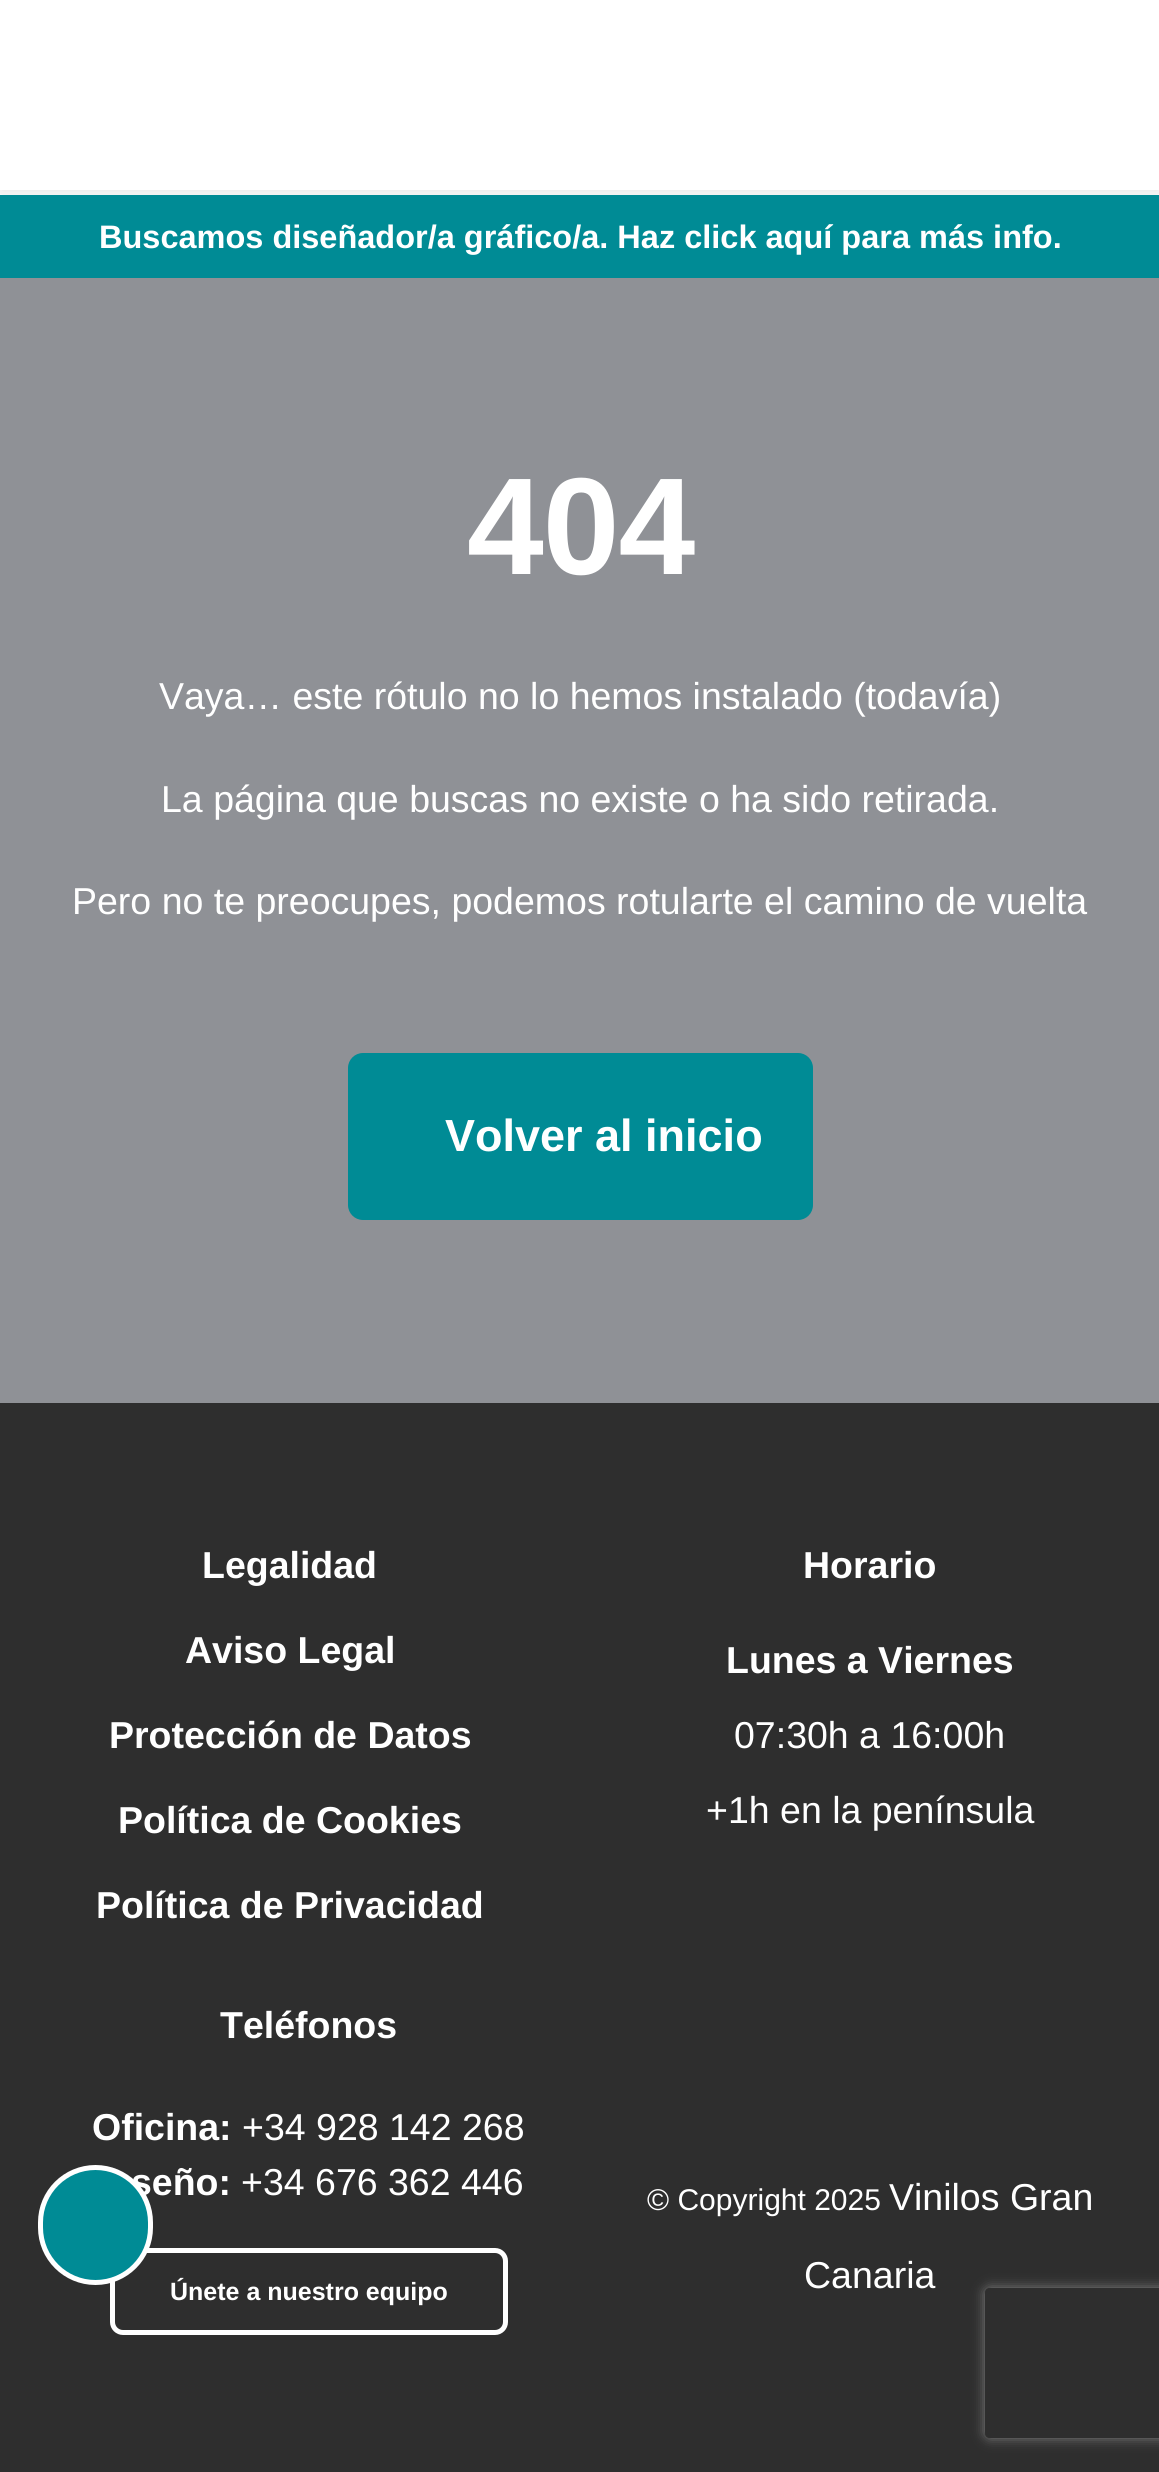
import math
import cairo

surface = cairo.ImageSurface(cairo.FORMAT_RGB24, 1159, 2472)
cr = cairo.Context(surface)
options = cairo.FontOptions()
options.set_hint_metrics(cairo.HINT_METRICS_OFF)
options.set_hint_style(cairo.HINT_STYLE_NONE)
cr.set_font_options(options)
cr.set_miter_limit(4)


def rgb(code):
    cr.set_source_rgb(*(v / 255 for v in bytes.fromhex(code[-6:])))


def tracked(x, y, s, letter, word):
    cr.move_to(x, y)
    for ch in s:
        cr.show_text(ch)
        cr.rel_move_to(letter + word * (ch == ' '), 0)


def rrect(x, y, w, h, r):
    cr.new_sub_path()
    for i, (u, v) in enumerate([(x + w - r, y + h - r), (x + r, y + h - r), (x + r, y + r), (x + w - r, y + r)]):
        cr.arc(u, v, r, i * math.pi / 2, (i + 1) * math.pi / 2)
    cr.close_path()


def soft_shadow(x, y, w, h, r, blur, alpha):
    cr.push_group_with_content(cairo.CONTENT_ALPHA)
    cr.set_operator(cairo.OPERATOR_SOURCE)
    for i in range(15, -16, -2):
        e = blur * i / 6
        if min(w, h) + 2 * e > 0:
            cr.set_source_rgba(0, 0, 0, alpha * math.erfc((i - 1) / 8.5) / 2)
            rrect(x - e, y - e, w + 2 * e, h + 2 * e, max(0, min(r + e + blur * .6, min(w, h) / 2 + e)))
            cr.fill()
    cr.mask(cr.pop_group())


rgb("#ffffff")
cr.paint()
cr.save()
cr.rectangle(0, 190, 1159, 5)
cr.clip()
rgb("#000000")
soft_shadow(0, 0, 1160, 190, 0, 10, 0.14)
cr.restore()
rgb("#008b95")
cr.rectangle(0, 195, 1159, 83)
cr.fill()
rgb("#8f9196")
cr.rectangle(0, 278, 1159, 1125)
cr.fill()
rgb("#008b95")
rrect(348, 1053, 465, 167, 15)
cr.fill()
rgb("#2e2e2e")
cr.rectangle(0, 1403, 1159, 1069)
cr.fill()
rrect(112.5, 2250.5, 393, 82, 10.5)
rgb("#ffffff")
cr.set_line_width(5)
cr.stroke()
cr.save()
cr.set_fill_rule(cairo.FILL_RULE_EVEN_ODD)
cr.new_path()
cr.move_to(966, 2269)
cr.line_to(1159, 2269)
cr.line_to(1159, 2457)
cr.line_to(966, 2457)
cr.close_path()
cr.move_to(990, 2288)
cr.line_to(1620, 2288)
cr.curve_to(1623, 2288, 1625, 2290, 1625, 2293)
cr.line_to(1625, 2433)
cr.curve_to(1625, 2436, 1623, 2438, 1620, 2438)
cr.line_to(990, 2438)
cr.curve_to(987, 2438, 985, 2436, 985, 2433)
cr.line_to(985, 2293)
cr.curve_to(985, 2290, 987, 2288, 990, 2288)
cr.close_path()
cr.clip()
rgb("#808080")
soft_shadow(985, 2288, 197, 150, 5, 6, 1)
cr.restore()
cr.select_font_face("Liberation Sans", cairo.FONT_SLANT_NORMAL, cairo.FONT_WEIGHT_BOLD)
cr.set_font_size(32.5)
cr.move_to(99, 248)
cr.show_text("Buscamos diseñador/a gráfico/a. Haz click aquí para más info.")
cr.set_font_size(138)
tracked(467, 574, "404", -1, 0)
cr.select_font_face("Liberation Sans")
cr.set_font_size(37.5)
for x, y, s in [
    (159, 709, "Vaya… este rótulo no lo hemos instalado (todavía)"),
    (161, 812, "La página que buscas no existe o ha sido retirada."),
    (72, 914, "Pero no te preocupes, podemos rotularte el camino de vuelta"),
]:
    cr.move_to(x, y)
    cr.show_text(s)
cr.select_font_face("Liberation Sans", cairo.FONT_SLANT_NORMAL, cairo.FONT_WEIGHT_BOLD)
cr.set_font_size(45)
cr.move_to(445, 1151)
cr.show_text("Volver al inicio")
cr.set_font_size(37.5)
for x, y, s in [
    (202, 1578, "Legalidad"),
    (185, 1663, "Aviso Legal"),
    (109, 1748, "Protección de Datos"),
    (118, 1833, "Política de Cookies"),
    (96, 1918, "Política de Privacidad"),
    (803, 1578, "Horario"),
    (726, 1673, "Lunes a Viernes"),
]:
    cr.move_to(x, y)
    cr.show_text(s)
cr.select_font_face("Liberation Sans")
cr.move_to(734, 1748)
cr.show_text("07:30h a 16:00h")
cr.move_to(706, 1823)
cr.show_text("+1h en la península")
cr.select_font_face("Liberation Sans", cairo.FONT_SLANT_NORMAL, cairo.FONT_WEIGHT_BOLD)
cr.move_to(220, 2038)
cr.show_text("Teléfonos")
cr.move_to(92, 2140)
cr.show_text("Oficina:")
cr.select_font_face("Liberation Sans")
cr.move_to(242, 2140)
cr.show_text("+34 928 142 268")
cr.select_font_face("Liberation Sans", cairo.FONT_SLANT_NORMAL, cairo.FONT_WEIGHT_BOLD)
cr.move_to(131, 2195)
cr.show_text("seño:")
rgb("#008b95")
rrect(40.5, 2167.5, 110, 115, 55)
cr.fill_preserve()
rgb("#ffffff")
cr.stroke()
cr.select_font_face("Liberation Sans")
cr.move_to(241, 2195)
cr.show_text("+34 676 362 446")
cr.select_font_face("Liberation Sans", cairo.FONT_SLANT_NORMAL, cairo.FONT_WEIGHT_BOLD)
cr.set_font_size(25)
cr.move_to(170, 2300)
cr.show_text("Únete a nuestro equipo")
cr.select_font_face("Liberation Sans")
cr.set_font_size(30)
cr.move_to(647, 2210)
cr.show_text("© Copyright 2025")
cr.set_font_size(37.5)
cr.move_to(889, 2210)
cr.show_text("Vinilos Gran")
cr.move_to(804, 2288)
cr.show_text("Canaria")
surface.write_to_png("page.png")
